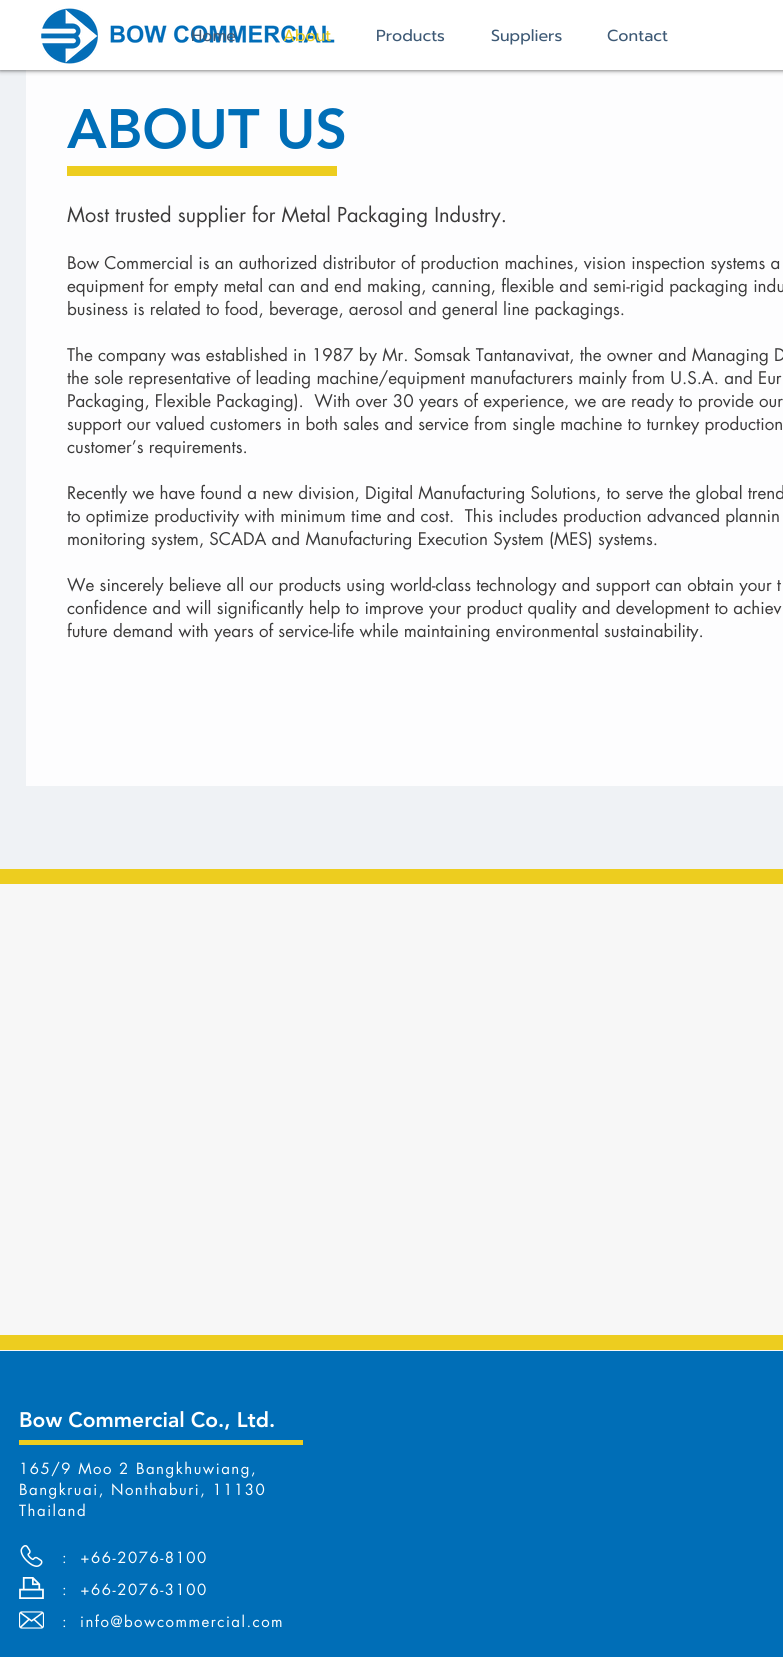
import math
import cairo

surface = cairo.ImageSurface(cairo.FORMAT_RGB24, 783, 1657)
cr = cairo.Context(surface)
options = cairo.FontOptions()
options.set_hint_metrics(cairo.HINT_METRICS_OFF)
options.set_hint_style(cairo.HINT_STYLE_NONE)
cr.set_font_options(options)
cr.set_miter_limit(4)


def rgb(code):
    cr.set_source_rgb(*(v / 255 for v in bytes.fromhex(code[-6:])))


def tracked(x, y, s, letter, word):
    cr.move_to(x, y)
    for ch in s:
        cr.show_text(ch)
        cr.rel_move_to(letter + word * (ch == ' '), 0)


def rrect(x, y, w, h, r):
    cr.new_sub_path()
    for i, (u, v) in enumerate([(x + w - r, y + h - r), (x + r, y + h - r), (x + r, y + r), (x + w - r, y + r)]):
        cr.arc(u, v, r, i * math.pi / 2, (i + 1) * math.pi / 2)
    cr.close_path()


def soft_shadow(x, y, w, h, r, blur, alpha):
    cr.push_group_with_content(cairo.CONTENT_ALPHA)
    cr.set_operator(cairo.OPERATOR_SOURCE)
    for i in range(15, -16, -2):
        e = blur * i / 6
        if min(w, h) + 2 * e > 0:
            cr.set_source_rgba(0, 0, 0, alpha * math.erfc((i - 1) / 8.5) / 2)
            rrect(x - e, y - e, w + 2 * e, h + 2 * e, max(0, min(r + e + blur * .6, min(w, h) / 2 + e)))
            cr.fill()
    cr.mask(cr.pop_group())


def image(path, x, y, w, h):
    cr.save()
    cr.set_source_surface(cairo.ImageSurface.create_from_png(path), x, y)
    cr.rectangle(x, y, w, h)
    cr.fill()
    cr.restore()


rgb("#eff2f5")
cr.paint()
rgb("#fdfdfe")
cr.rectangle(26, 70, 757, 716)
cr.fill()
rgb("#000000")
soft_shadow(0, 0, 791, 70, 0, 2.5, 0.7)
rgb("#ffffff")
cr.rectangle(0, 0, 783, 70)
cr.fill()
image("img/1.png", 41, 8, 57, 56)
image("img/2.png", 110, 25, 225, 18)
for x, y, w, h, color in [
    (67, 166, 270, 10, "#edcd1f"),
    (0, 869, 783, 15, "#edcd1f"),
    (0, 884, 783, 467, "#f7f7f7"),
    (0, 1335, 783, 15, "#edcd1f"),
    (0, 1351, 783, 306, "#006eb7"),
    (19, 1440, 284, 5, "#edcd1f"),
]:
    rgb(color)
    cr.rectangle(x, y, w, h)
    cr.fill()
image("img/3.png", 20, 1545, 23, 22)
image("img/4.png", 19, 1577, 25, 22)
image("img/5.png", 19, 1611, 25, 18)
cr.select_font_face("Prompt")
cr.set_font_size(16)
rgb("#3d5975")
cr.move_to(191, 41)
cr.show_text("Home")
rgb("#edcd1f")
cr.move_to(283, 41)
cr.show_text("About")
rgb("#3d5975")
for x, y, s in [
    (376, 41, "Products"),
    (491, 41, "Suppliers"),
    (607, 41, "Contact"),
]:
    cr.move_to(x, y)
    cr.show_text(s)
cr.select_font_face("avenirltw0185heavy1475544 Black")
cr.set_font_size(55)
rgb("#006eb7")
cr.move_to(67, 148)
cr.show_text("ABOUT US")
cr.select_font_face("futura")
cr.set_font_size(20)
rgb("#3b3a3a")
cr.move_to(67, 222)
cr.show_text("Most trusted supplier for Metal Packaging Industry.")
cr.set_font_size(17)
for x, y, s in [
    (67, 269, "Bow Commercial is an authorized distributor of production machines, vision inspection systems a"),
    (67, 292, "equipment for empty metal can and end making, canning, flexible and semi-rigid packaging indu"),
    (67, 315, "business is related to food, beverage, aerosol and general line packagings."),
    (67, 361, "The company was established in 1987 by Mr. Somsak Tantanavivat, the owner and Managing D"),
    (67, 384, "the sole representative of leading machine/equipment manufacturers mainly from U.S.A. and Eur"),
    (67, 407, "Packaging, Flexible Packaging).  With over 30 years of experience, we are ready to provide our"),
    (67, 430, "support our valued customers in both sales and service from single machine to turnkey production"),
    (67, 453, "customer’s requirements."),
    (67, 499, "Recently we have found a new division, Digital Manufacturing Solutions, to serve the global trend"),
    (67, 522, "to optimize productivity with minimum time and cost.  This includes production advanced plannin"),
    (67, 545, "monitoring system, SCADA and Manufacturing Execution System (MES) systems."),
    (67, 591, "We sincerely believe all our products using world-class technology and support can obtain your t"),
    (67, 614, "confidence and will significantly help to improve your product quality and development to achiev"),
    (67, 637, "future demand with years of service-life while maintaining environmental sustainability."),
]:
    cr.move_to(x, y)
    cr.show_text(s)
cr.select_font_face("avenirltw0185heavy1475544 Black")
cr.set_font_size(21)
rgb("#ffffff")
cr.move_to(19, 1427)
cr.show_text("Bow Commercial Co., Ltd.")
cr.select_font_face("futura")
cr.set_font_size(15)
for x, y, s in [
    (19, 1474, "165/9 Moo 2 Bangkhuwiang,"),
    (19, 1495, "Bangkruai, Nonthaburi, 11130"),
    (19, 1516, "Thailand"),
    (62, 1563, ":  +66-2076-8100"),
    (62, 1595, ":  +66-2076-3100"),
    (62, 1627, ":"),
    (80, 1627, "info@bowcommercial.com"),
]:
    tracked(x, y, s, 1.5, 0)
surface.write_to_png("page.png")
